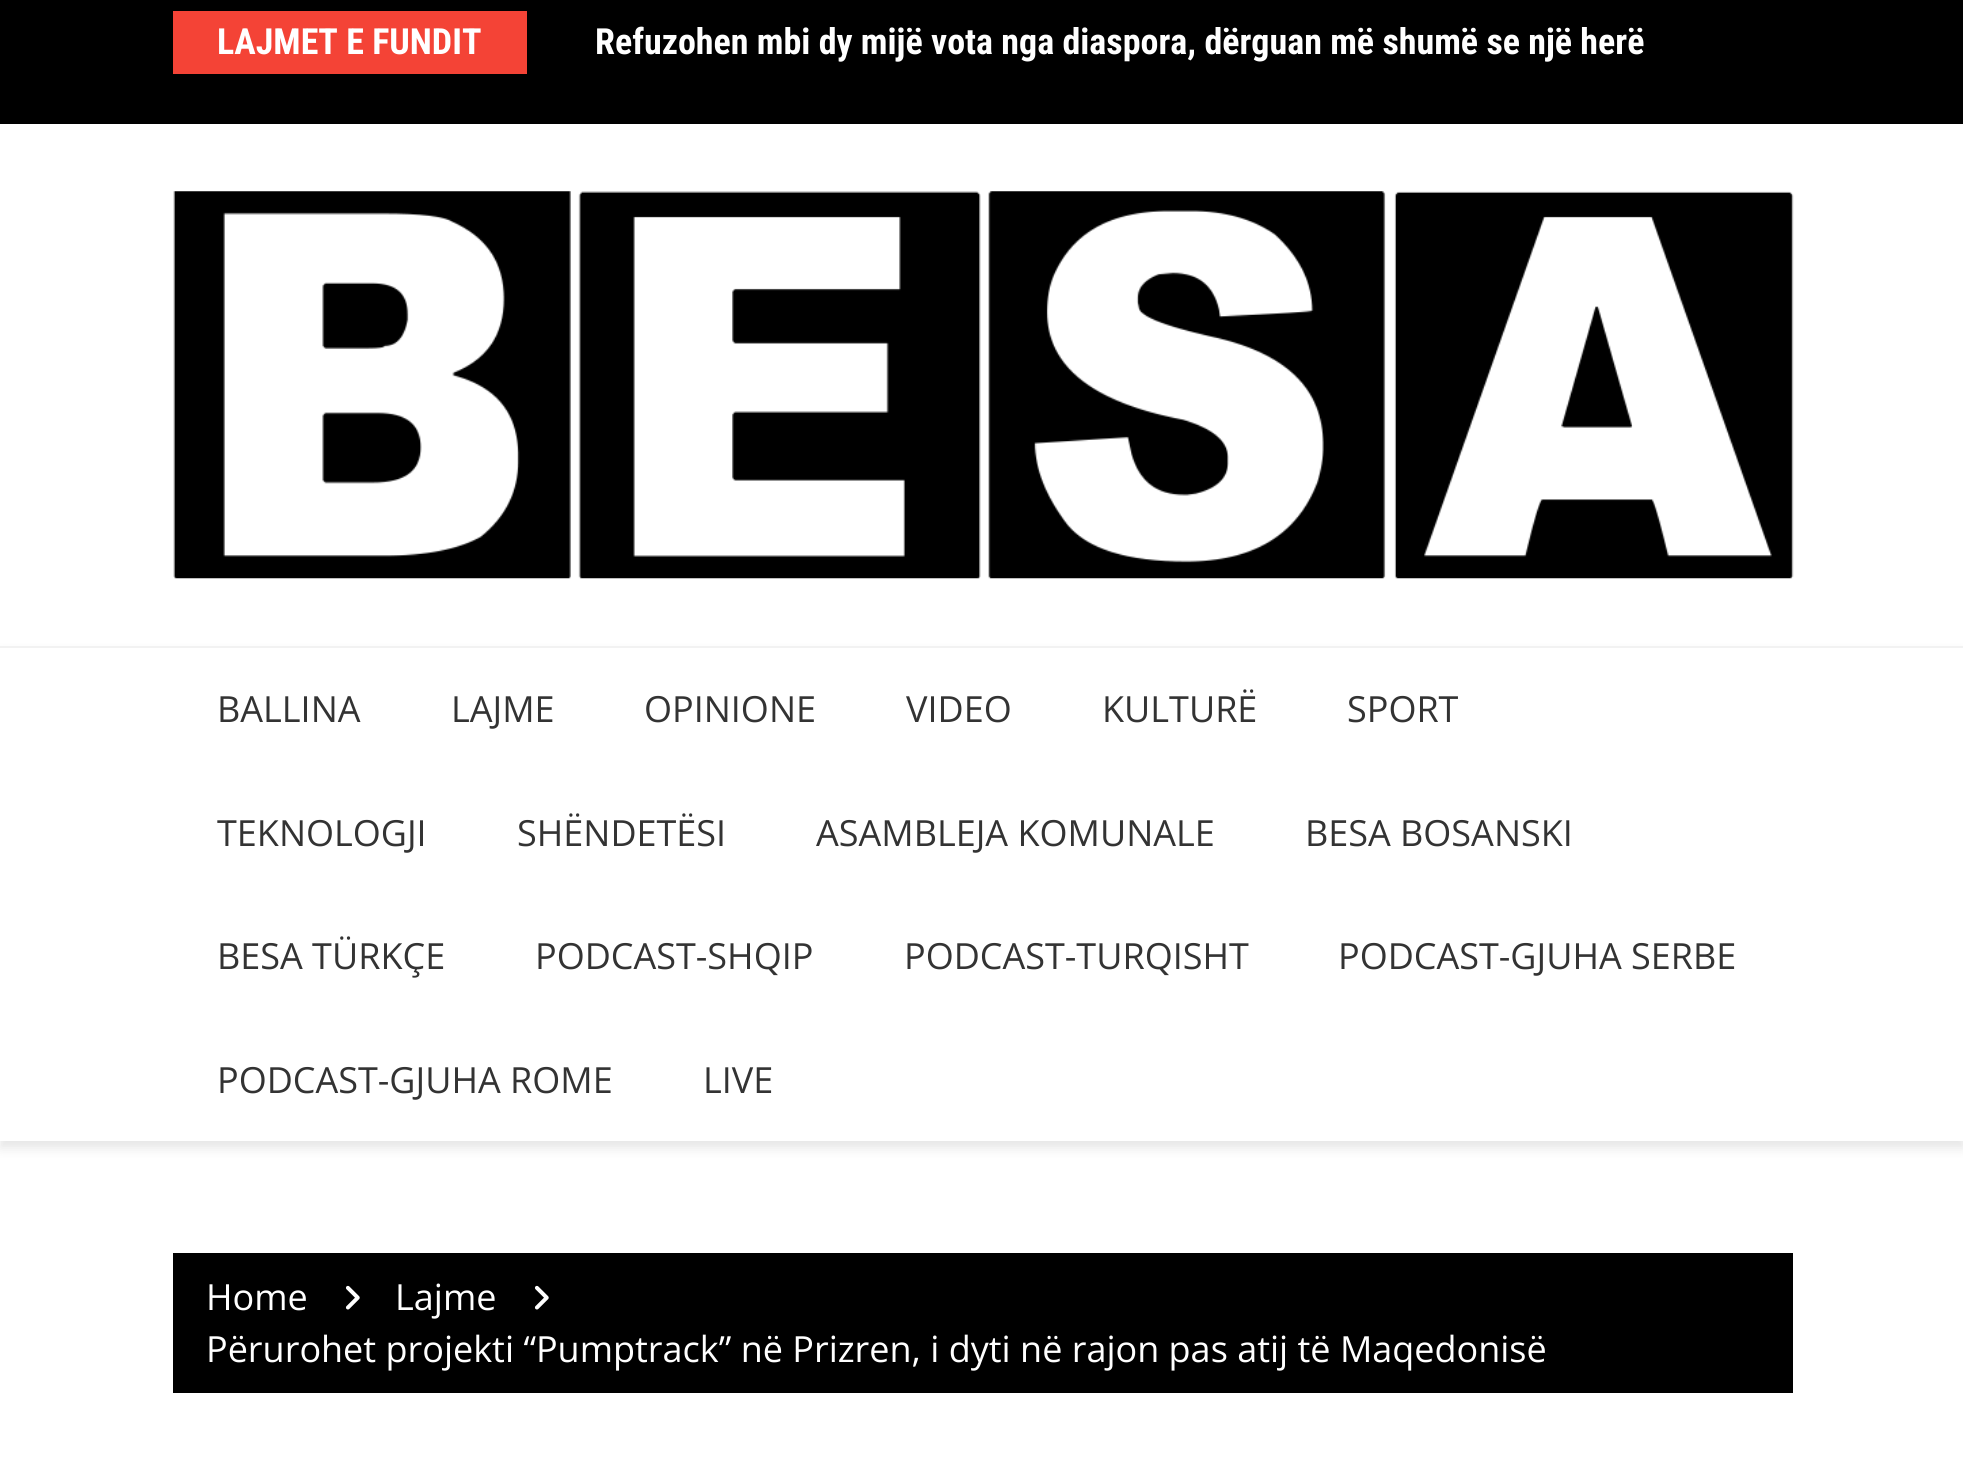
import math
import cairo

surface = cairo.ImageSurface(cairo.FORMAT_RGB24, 1963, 1476)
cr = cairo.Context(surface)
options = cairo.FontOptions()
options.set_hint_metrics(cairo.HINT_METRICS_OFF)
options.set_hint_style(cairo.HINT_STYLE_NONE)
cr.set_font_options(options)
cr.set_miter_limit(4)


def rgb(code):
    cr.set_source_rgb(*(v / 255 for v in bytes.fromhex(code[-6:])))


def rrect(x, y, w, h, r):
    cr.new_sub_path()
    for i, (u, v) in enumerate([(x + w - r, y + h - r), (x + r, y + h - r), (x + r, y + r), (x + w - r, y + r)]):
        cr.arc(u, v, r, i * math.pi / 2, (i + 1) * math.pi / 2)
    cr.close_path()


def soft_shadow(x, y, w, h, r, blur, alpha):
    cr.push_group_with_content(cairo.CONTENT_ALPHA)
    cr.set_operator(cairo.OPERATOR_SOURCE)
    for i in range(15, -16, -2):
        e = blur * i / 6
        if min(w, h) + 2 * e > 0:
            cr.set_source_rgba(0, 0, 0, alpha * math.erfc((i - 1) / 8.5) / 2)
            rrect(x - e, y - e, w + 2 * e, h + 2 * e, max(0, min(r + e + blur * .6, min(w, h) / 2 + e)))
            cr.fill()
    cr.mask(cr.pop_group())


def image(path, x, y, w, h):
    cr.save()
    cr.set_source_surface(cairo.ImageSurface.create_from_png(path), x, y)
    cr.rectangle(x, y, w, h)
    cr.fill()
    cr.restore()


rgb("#ffffff")
cr.paint()
rgb("#000000")
cr.rectangle(0, 0, 1963, 124)
cr.fill()
rgb("#f44336")
cr.rectangle(173, 11, 354, 63)
cr.fill()
image("img/1.png", 173, 191, 1621, 388)
cr.save()
cr.set_fill_rule(cairo.FILL_RULE_EVEN_ODD)
cr.new_path()
cr.move_to(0, 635)
cr.line_to(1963, 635)
cr.line_to(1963, 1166)
cr.line_to(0, 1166)
cr.close_path()
cr.move_to(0, 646)
cr.line_to(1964, 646)
cr.line_to(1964, 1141)
cr.line_to(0, 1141)
cr.close_path()
cr.clip()
rgb("#000000")
soft_shadow(0, 653, 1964, 495, 0, 5.5, 0.1)
cr.restore()
rgb("#f2f2f2")
cr.rectangle(0, 646, 1963, 2)
cr.fill()
rgb("#000000")
cr.rectangle(173, 1253, 1620, 140)
cr.fill()
image("img/2.png", 345, 1285, 15, 25)
image("img/2.png", 534, 1285, 15, 25)
cr.select_font_face("Roboto Condensed", cairo.FONT_SLANT_NORMAL, cairo.FONT_WEIGHT_BOLD)
cr.set_font_size(36)
rgb("#ffffff")
cr.move_to(217, 54)
cr.show_text("LAJMET E FUNDIT")
cr.move_to(595, 54)
cr.show_text("Refuzohen mbi dy mijë vota nga diaspora, dërguan më shumë se një herë")
cr.select_font_face("Open Sans")
rgb("#333333")
for x, y, s in [
    (217, 722, "BALLINA"),
    (451, 722, "LAJME"),
    (644, 722, "OPINIONE"),
    (906, 722, "VIDEO"),
    (1102, 722, "KULTURË"),
    (1347, 722, "SPORT"),
    (217, 846, "TEKNOLOGJI"),
    (517, 846, "SHËNDETËSI"),
    (816, 846, "ASAMBLEJA KOMUNALE"),
    (1305, 846, "BESA BOSANSKI"),
    (217, 969, "BESA TÜRKÇE"),
    (535, 969, "PODCAST-SHQIP"),
    (904, 969, "PODCAST-TURQISHT"),
    (1338, 969, "PODCAST-GJUHA SERBE"),
    (217, 1093, "PODCAST-GJUHA ROME"),
    (703, 1093, "LIVE"),
]:
    cr.move_to(x, y)
    cr.show_text(s)
rgb("#ffffff")
for x, y, s in [
    (206, 1310, "Home"),
    (395, 1310, "Lajme"),
    (206, 1362, "Përurohet projekti “Pumptrack” në Prizren, i dyti në rajon pas atij të Maqedonisë"),
]:
    cr.move_to(x, y)
    cr.show_text(s)
surface.write_to_png("page.png")
